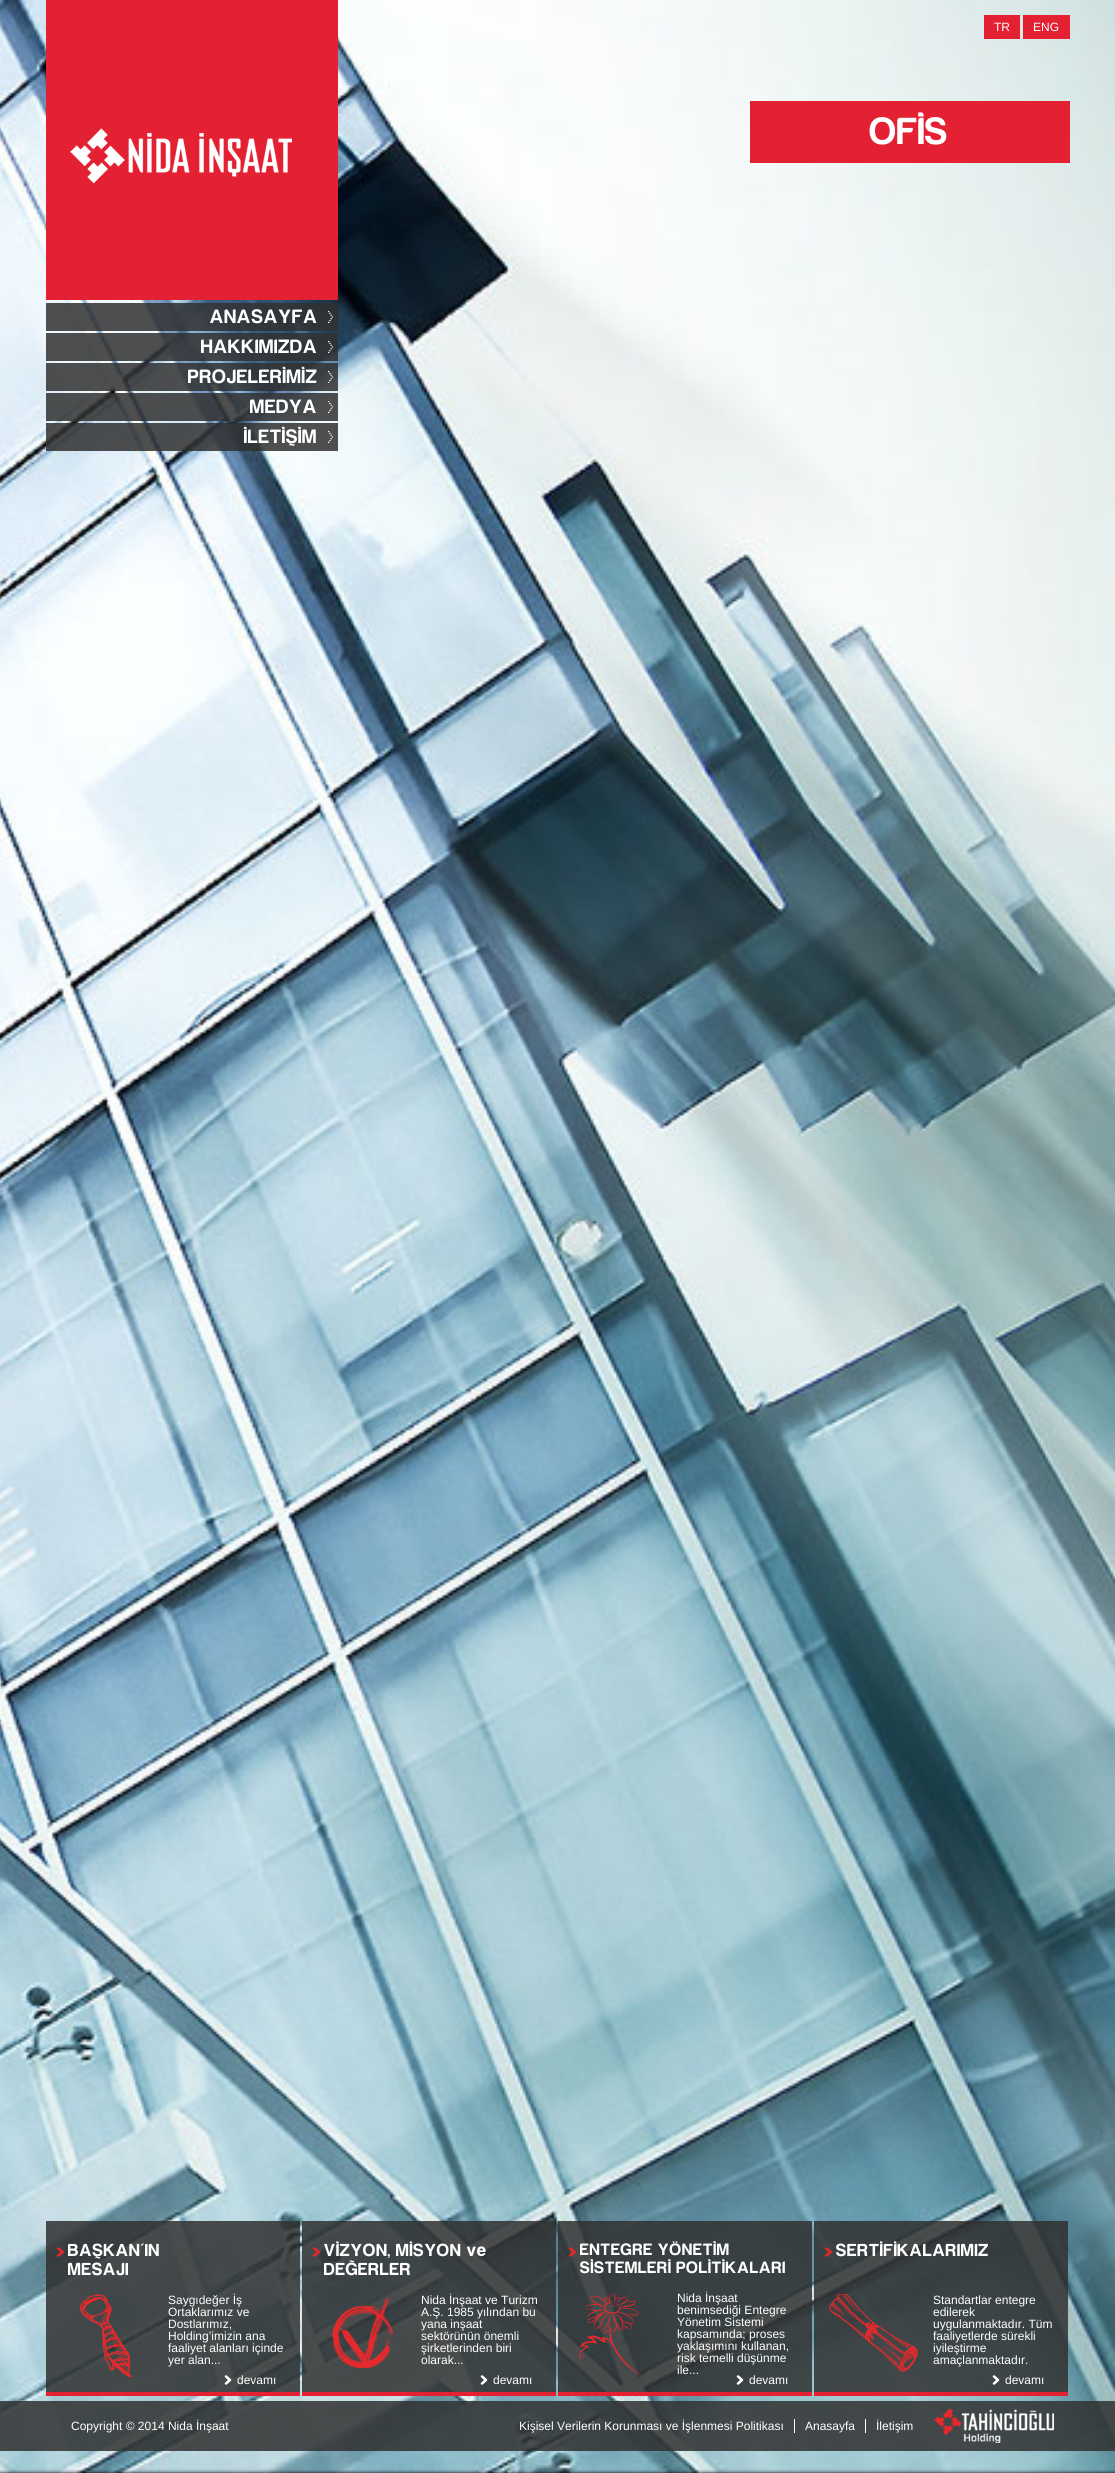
import math
import cairo

surface = cairo.ImageSurface(cairo.FORMAT_RGB24, 1115, 2473)
cr = cairo.Context(surface)
options = cairo.FontOptions()
options.set_hint_metrics(cairo.HINT_METRICS_OFF)
options.set_hint_style(cairo.HINT_STYLE_NONE)
cr.set_font_options(options)
cr.set_miter_limit(4)


def rgb(code):
    cr.set_source_rgb(*(v / 255 for v in bytes.fromhex(code[-6:])))


def tracked(x, y, s, letter, word):
    cr.move_to(x, y)
    for ch in s:
        cr.show_text(ch)
        cr.rel_move_to(letter + word * (ch == ' '), 0)


def rrect(x, y, w, h, r):
    cr.new_sub_path()
    for i, (u, v) in enumerate([(x + w - r, y + h - r), (x + r, y + h - r), (x + r, y + r), (x + w - r, y + r)]):
        cr.arc(u, v, r, i * math.pi / 2, (i + 1) * math.pi / 2)
    cr.close_path()


def soft_shadow(x, y, w, h, r, blur, alpha):
    cr.push_group_with_content(cairo.CONTENT_ALPHA)
    cr.set_operator(cairo.OPERATOR_SOURCE)
    for i in range(15, -16, -2):
        e = blur * i / 6
        if min(w, h) + 2 * e > 0:
            cr.set_source_rgba(0, 0, 0, alpha * math.erfc((i - 1) / 8.5) / 2)
            rrect(x - e, y - e, w + 2 * e, h + 2 * e, max(0, min(r + e + blur * .6, min(w, h) / 2 + e)))
            cr.fill()
    cr.mask(cr.pop_group())


def image(path, x, y, w, h):
    cr.save()
    cr.set_source_surface(cairo.ImageSurface.create_from_png(path), x, y)
    cr.rectangle(x, y, w, h)
    cr.fill()
    cr.restore()


rgb("#ffffff")
cr.paint()
image("img/1.png", 0, 0, 1115, 2473)
rgb("#e32133")
cr.rectangle(46, 0, 292, 300)
cr.fill()
image("img/2.png", 70, 128, 55, 55)
image("img/3.png", 128, 132, 164, 45)
cr.rectangle(984, 15, 36, 24)
cr.rectangle(1023, 15, 47, 24)
cr.fill()
cr.set_source_rgba(0.192, 0.192, 0.192, 0.85)
cr.rectangle(46, 303, 292, 28)
cr.fill()
image("img/4.png", 328, 311, 5, 12)
cr.rectangle(46, 333, 292, 28)
cr.fill()
image("img/5.png", 328, 341, 5, 12)
cr.rectangle(46, 363, 292, 28)
cr.fill()
image("img/6.png", 328, 371, 5, 12)
cr.rectangle(46, 393, 292, 28)
cr.fill()
image("img/7.png", 328, 401, 5, 12)
cr.rectangle(46, 423, 292, 28)
cr.fill()
image("img/8.png", 328, 431, 5, 12)
cr.rectangle(46, 2221, 254, 171)
cr.fill()
rgb("#e32133")
cr.rectangle(46, 2392, 254, 4)
cr.fill()
image("img/9.png", 56, 2247, 9, 10)
image("img/10.png", 79, 2294, 53, 84)
image("img/11.png", 224, 2375, 8, 10)
cr.set_source_rgba(0.192, 0.192, 0.192, 0.85)
cr.rectangle(302, 2221, 254, 171)
cr.fill()
rgb("#e32133")
cr.rectangle(302, 2392, 254, 4)
cr.fill()
image("img/12.png", 312, 2247, 9, 10)
image("img/13.png", 332, 2297, 61, 71)
image("img/14.png", 480, 2375, 8, 10)
cr.set_source_rgba(0.192, 0.192, 0.192, 0.85)
cr.rectangle(558, 2221, 254, 171)
cr.fill()
rgb("#e32133")
cr.rectangle(558, 2392, 254, 4)
cr.fill()
image("img/15.png", 568, 2247, 9, 10)
image("img/16.png", 579, 2293, 62, 82)
image("img/17.png", 736, 2375, 8, 10)
cr.set_source_rgba(0.192, 0.192, 0.192, 0.85)
cr.rectangle(814, 2221, 254, 171)
cr.fill()
rgb("#e32133")
cr.rectangle(814, 2392, 254, 4)
cr.fill()
image("img/18.png", 824, 2247, 9, 10)
image("img/19.png", 829, 2294, 89, 78)
image("img/20.png", 992, 2375, 8, 10)
cr.rectangle(750, 101, 320, 62)
cr.fill()
rgb("#000000")
soft_shadow(0, 2473, 1115, 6, 0, 2, 1)
cr.set_source_rgba(0.192, 0.192, 0.192, 0.85)
cr.rectangle(0, 2401, 1115, 50)
cr.fill()
rgb("#ffffff")
cr.rectangle(794, 2419, 1, 14)
cr.rectangle(865, 2419, 1, 14)
cr.fill()
image("img/21.png", 934, 2408, 120, 35)
cr.select_font_face("Liberation Sans")
cr.set_font_size(12)
cr.move_to(994, 31)
cr.show_text("TR")
cr.move_to(1033, 31)
cr.show_text("ENG")
cr.select_font_face("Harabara", cairo.FONT_SLANT_NORMAL, cairo.FONT_WEIGHT_BOLD)
cr.set_font_size(20)
for x, y, s in [
    (210, 323, "ANASAYFA"),
    (201, 353, "HAKKIMIZDA"),
    (188, 383, "PROJELERİMİZ"),
    (250, 413, "MEDYA"),
    (244, 443, "İLETİŞİM"),
]:
    tracked(x, y, s, 1, 0)
cr.set_font_size(18)
tracked(68, 2256, "BAŞKAN'IN", 1, 0)
tracked(68, 2275, "MESAJI", 1, 0)
cr.select_font_face("Liberation Sans")
cr.set_font_size(12)
for x, y, s in [
    (168, 2304, "Saygıdeğer İş"),
    (168, 2316, "Ortaklarımız ve"),
    (168, 2328, "Dostlarımız,"),
    (168, 2340, "Holding’imizin ana"),
    (168, 2352, "faaliyet alanları içinde"),
    (168, 2364, "yer alan..."),
    (237, 2384, "devamı"),
]:
    cr.move_to(x, y)
    cr.show_text(s)
cr.select_font_face("Harabara", cairo.FONT_SLANT_NORMAL, cairo.FONT_WEIGHT_BOLD)
cr.set_font_size(18)
tracked(324, 2256, "VİZYON, MİSYON ve", 1, 0)
tracked(324, 2275, "DEĞERLER", 1, 0)
cr.select_font_face("Liberation Sans")
cr.set_font_size(12)
for x, y, s in [
    (421, 2304, "Nida İnşaat ve Turizm"),
    (421, 2316, "A.Ş. 1985 yılından bu"),
    (421, 2328, "yana inşaat"),
    (421, 2340, "sektörünün önemli"),
    (421, 2352, "şirketlerinden biri"),
    (421, 2364, "olarak..."),
    (493, 2384, "devamı"),
]:
    cr.move_to(x, y)
    cr.show_text(s)
cr.select_font_face("Harabara", cairo.FONT_SLANT_NORMAL, cairo.FONT_WEIGHT_BOLD)
cr.set_font_size(17)
tracked(580, 2255, "ENTEGRE YÖNETİM", 1, 0)
tracked(580, 2273, "SİSTEMLERİ POLİTİKALARI", 1, 0)
cr.select_font_face("Liberation Sans")
cr.set_font_size(12)
for x, y, s in [
    (677, 2302, "Nida İnşaat"),
    (677, 2314, "benimsediği Entegre"),
    (677, 2326, "Yönetim Sistemi"),
    (677, 2338, "kapsamında; proses"),
    (677, 2350, "yaklaşımını kullanan,"),
    (677, 2362, "risk temelli düşünme"),
    (677, 2374, "ile..."),
    (749, 2384, "devamı"),
]:
    cr.move_to(x, y)
    cr.show_text(s)
cr.select_font_face("Harabara", cairo.FONT_SLANT_NORMAL, cairo.FONT_WEIGHT_BOLD)
cr.set_font_size(18)
tracked(836, 2256, "SERTİFİKALARIMIZ", 1, 0)
cr.select_font_face("Liberation Sans")
cr.set_font_size(12)
for x, y, s in [
    (933, 2304, "Standartlar entegre"),
    (933, 2316, "edilerek"),
    (933, 2328, "uygulanmaktadır. Tüm"),
    (933, 2340, "faaliyetlerde sürekli"),
    (933, 2352, "iyileştirme"),
    (933, 2364, "amaçlanmaktadır."),
    (1005, 2384, "devamı"),
]:
    cr.move_to(x, y)
    cr.show_text(s)
cr.select_font_face("Harabara", cairo.FONT_SLANT_NORMAL, cairo.FONT_WEIGHT_BOLD)
cr.set_font_size(39)
tracked(870, 144, "OFİS", 1, 0)
cr.select_font_face("Liberation Sans")
cr.set_font_size(12)
for x, y, s in [
    (71, 2430, "Copyright © 2014 Nida İnşaat"),
    (519, 2430, "Kişisel Verilerin Korunması ve İşlenmesi Politikası"),
    (805, 2430, "Anasayfa"),
    (876, 2430, "İletişim"),
]:
    cr.move_to(x, y)
    cr.show_text(s)
surface.write_to_png("page.png")
